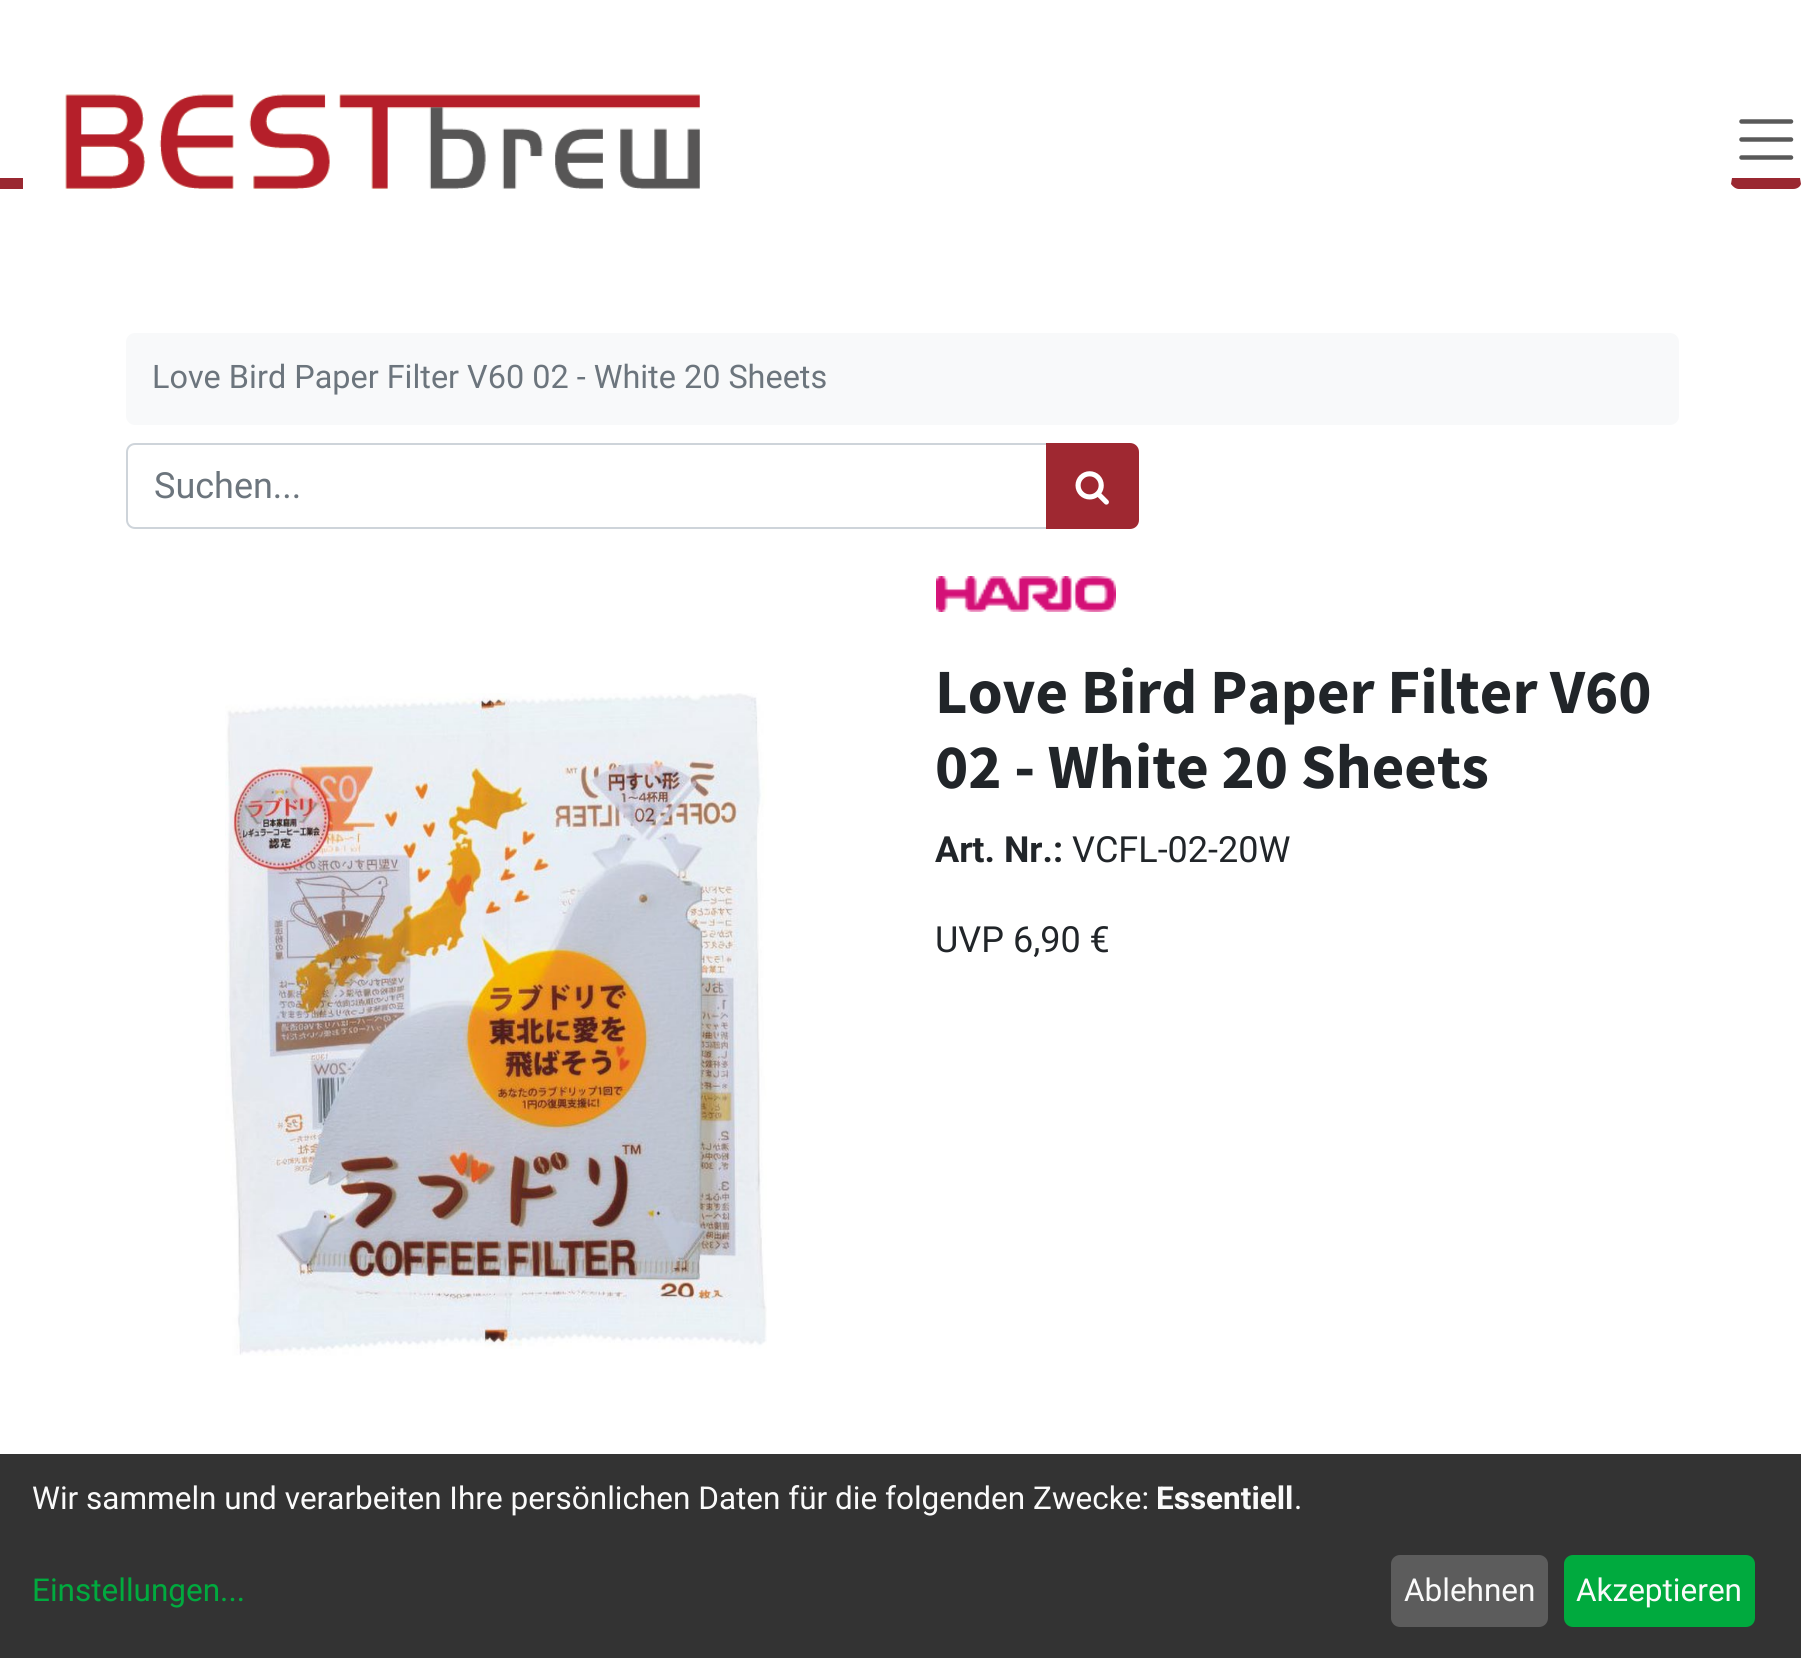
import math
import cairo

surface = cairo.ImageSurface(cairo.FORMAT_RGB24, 1801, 1658)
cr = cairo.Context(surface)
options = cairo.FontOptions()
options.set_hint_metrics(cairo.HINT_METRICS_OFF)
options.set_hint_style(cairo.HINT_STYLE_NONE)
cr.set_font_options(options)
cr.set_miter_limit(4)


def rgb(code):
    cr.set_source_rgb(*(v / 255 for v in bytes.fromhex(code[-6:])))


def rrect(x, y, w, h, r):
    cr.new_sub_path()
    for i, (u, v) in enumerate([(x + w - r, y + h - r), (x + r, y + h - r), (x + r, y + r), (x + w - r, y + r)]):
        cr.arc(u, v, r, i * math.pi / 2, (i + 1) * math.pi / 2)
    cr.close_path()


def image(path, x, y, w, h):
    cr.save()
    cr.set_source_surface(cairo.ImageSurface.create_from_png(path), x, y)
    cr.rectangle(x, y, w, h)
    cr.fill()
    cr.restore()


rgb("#ffffff")
cr.paint()
rgb("#9a2831")
cr.rectangle(0, 178, 23, 11)
cr.fill()
image("img/1.png", 65, 94, 635, 95)
cr.new_path()
cr.move_to(1739, 189)
cr.line_to(1793, 189)
cr.curve_to(1797, 189, 1800, 187, 1801, 184)
cr.line_to(1800, 178)
cr.line_to(1732, 178)
cr.line_to(1731, 184)
cr.curve_to(1733, 187, 1736, 189, 1739, 189)
cr.close_path()
cr.fill()
cr.new_path()
cr.move_to(1741.5, 121.5)
cr.line_to(1791, 121.5)
cr.move_to(1741.5, 139.5)
cr.line_to(1791, 139.5)
cr.move_to(1741.5, 157.5)
cr.line_to(1791, 157.5)
rgb("#595959")
cr.set_line_width(4.5)
cr.set_line_cap(cairo.LINE_CAP_ROUND)
cr.stroke()
rgb("#f8f9fa")
rrect(126, 333, 1553, 92, 9)
cr.fill()
cr.new_path()
cr.move_to(135, 444)
cr.line_to(1048, 444)
cr.line_to(1048, 528)
cr.line_to(135, 528)
cr.curve_to(130.5, 528, 127, 524.5, 127, 520)
cr.line_to(127, 452)
cr.curve_to(127, 447.5, 130.5, 444, 135, 444)
cr.close_path()
rgb("#ced4da")
cr.set_line_width(2)
cr.set_line_cap(cairo.LINE_CAP_BUTT)
cr.stroke()
rgb("#9f2831")
cr.new_path()
cr.move_to(1047, 444)
cr.line_to(1130, 444)
cr.curve_to(1134.5, 444, 1138, 447.5, 1138, 452)
cr.line_to(1138, 520)
cr.curve_to(1138, 524.5, 1134.5, 528, 1130, 528)
cr.line_to(1047, 528)
cr.close_path()
cr.fill_preserve()
cr.stroke()
image("img/2.png", 1075, 471, 34, 34)
image("img/3.png", 225, 693, 542, 663)
image("img/4.png", 936, 576, 180, 36)
rgb("#333333")
cr.rectangle(0, 1454, 1801, 204)
cr.fill()
rgb("#5c5c5c")
rrect(1391, 1555, 157, 72, 9)
cr.fill()
rgb("#00aa3e")
rrect(1564, 1555, 191, 72, 9)
cr.fill()
cr.select_font_face("Roboto")
cr.set_font_size(32.4)
rgb("#6c757d")
cr.move_to(152, 388)
cr.show_text("Love Bird Paper Filter V60 02 - White 20 Sheets")
cr.set_font_size(36)
cr.move_to(154, 498)
cr.show_text("Suchen...")
cr.select_font_face("Source Sans Pro", cairo.FONT_SLANT_NORMAL, cairo.FONT_WEIGHT_BOLD)
cr.set_font_size(63)
rgb("#212529")
cr.move_to(935, 713)
cr.show_text("Love Bird Paper Filter V60")
cr.move_to(935, 788)
cr.show_text("02 - White 20 Sheets")
cr.select_font_face("Roboto", cairo.FONT_SLANT_NORMAL, cairo.FONT_WEIGHT_BOLD)
cr.set_font_size(36)
cr.move_to(935, 862)
cr.show_text("Art. Nr.:")
cr.select_font_face("Roboto")
cr.move_to(1072, 862)
cr.show_text("VCFL-02-20W")
cr.move_to(935, 952)
cr.show_text("UVP 6,90 €")
cr.set_font_size(31.5)
rgb("#fafafa")
cr.move_to(32, 1509)
cr.show_text("Wir sammeln und verarbeiten Ihre persönlichen Daten für die folgenden Zwecke:")
cr.select_font_face("Roboto", cairo.FONT_SLANT_NORMAL, cairo.FONT_WEIGHT_BOLD)
cr.move_to(1156, 1509)
cr.show_text("Essentiell")
cr.select_font_face("Roboto")
cr.move_to(1294, 1509)
cr.show_text(".")
rgb("#00aa3e")
cr.move_to(32, 1601)
cr.show_text("Einstellungen...")
rgb("#fafafa")
cr.move_to(1404, 1601)
cr.show_text("Ablehnen")
cr.move_to(1576, 1601)
cr.show_text("Akzeptieren")
surface.write_to_png("page.png")
